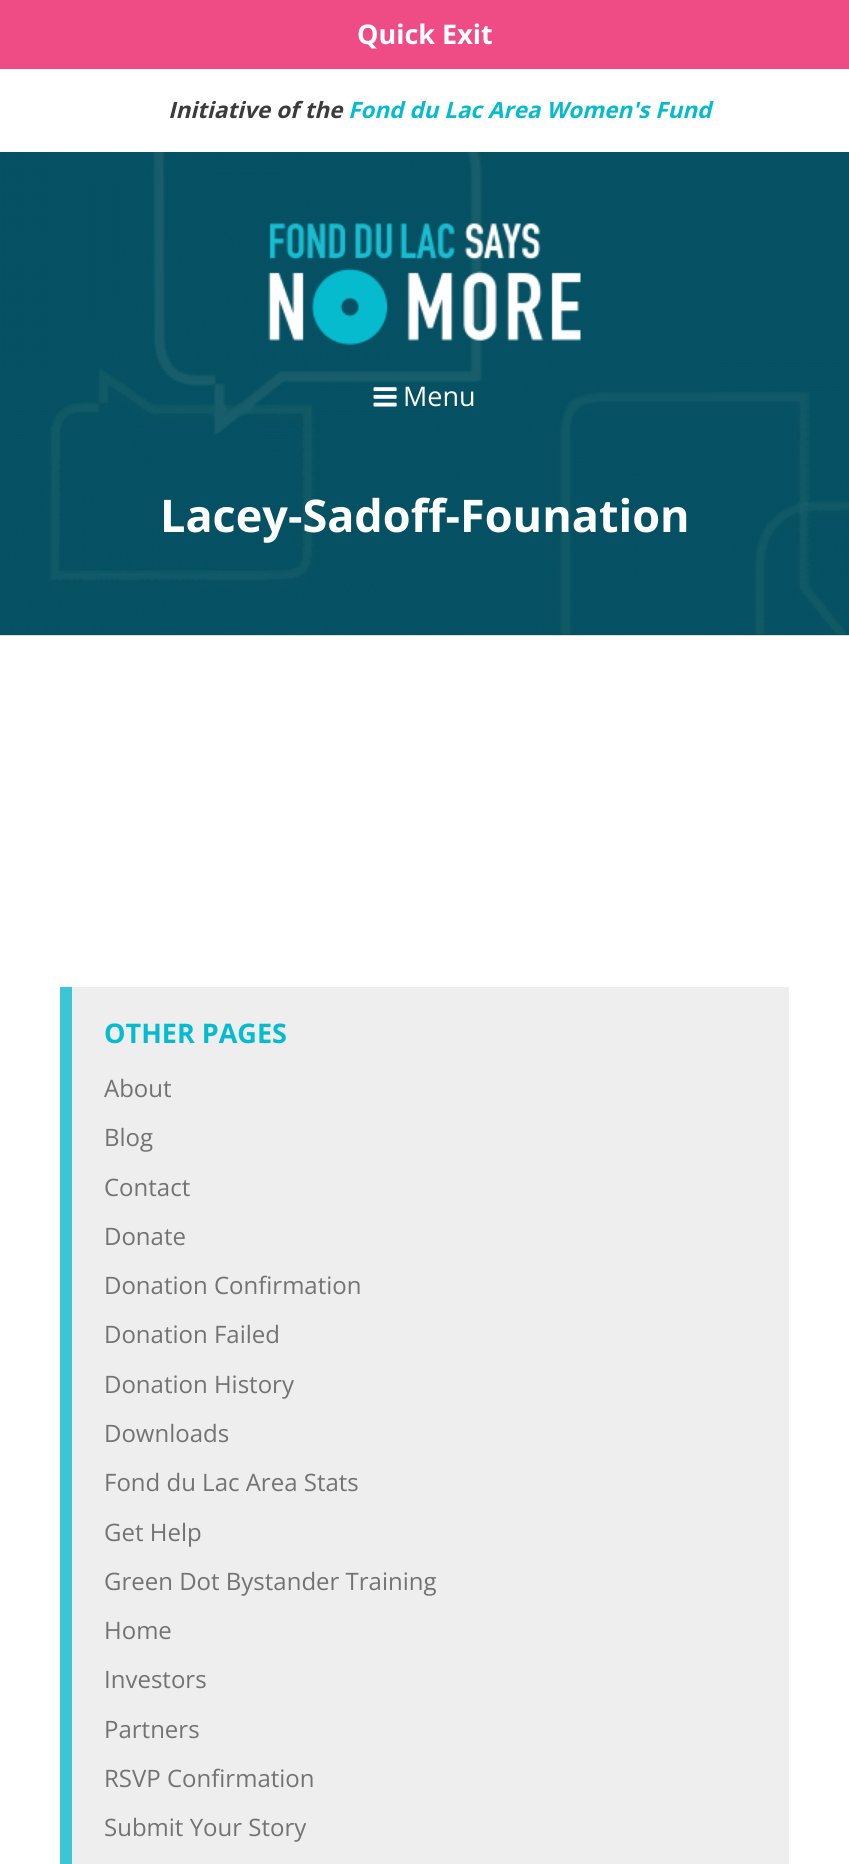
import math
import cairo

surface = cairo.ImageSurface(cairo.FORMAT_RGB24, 849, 1864)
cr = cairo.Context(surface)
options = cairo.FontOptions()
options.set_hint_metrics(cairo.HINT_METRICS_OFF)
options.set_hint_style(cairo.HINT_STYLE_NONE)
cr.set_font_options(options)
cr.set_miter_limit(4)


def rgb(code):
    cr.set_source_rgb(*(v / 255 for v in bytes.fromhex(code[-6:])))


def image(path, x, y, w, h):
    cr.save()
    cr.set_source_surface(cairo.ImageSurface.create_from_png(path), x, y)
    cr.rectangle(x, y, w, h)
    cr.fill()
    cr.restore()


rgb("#ffffff")
cr.paint()
rgb("#065161")
cr.rectangle(0, 152, 849, 483)
cr.fill()
image("img/1.png", 0, 152, 849, 484)
rgb("#ef4c85")
cr.rectangle(0, 0, 849, 69)
cr.fill()
image("img/2.png", 268, 223, 313, 122)
image("img/3.png", 373, 387, 24, 20)
rgb("#eeeeee")
cr.rectangle(72, 987, 717, 877)
cr.fill()
rgb("#3bc6d5")
cr.rectangle(60, 987, 12, 877)
cr.fill()
cr.select_font_face("Open Sans", cairo.FONT_SLANT_NORMAL, cairo.FONT_WEIGHT_BOLD)
cr.set_font_size(27)
rgb("#ffffff")
cr.move_to(357, 44)
cr.show_text("Quick Exit")
cr.select_font_face("Open Sans", cairo.FONT_SLANT_ITALIC, cairo.FONT_WEIGHT_BOLD)
cr.set_font_size(22.5)
rgb("#3b3b3b")
cr.move_to(168, 118)
cr.show_text("Initiative of the")
rgb("#07bbce")
cr.move_to(348, 118)
cr.show_text("Fond du Lac Area Women's Fund")
cr.select_font_face("Open Sans")
cr.set_font_size(27)
rgb("#ffffff")
cr.move_to(403, 406)
cr.show_text("Menu")
cr.select_font_face("Open Sans", cairo.FONT_SLANT_NORMAL, cairo.FONT_WEIGHT_BOLD)
cr.set_font_size(45)
cr.move_to(160, 532)
cr.show_text("Lacey-Sadoff-Founation")
cr.set_font_size(27)
rgb("#07bbce")
cr.move_to(104, 1043)
cr.show_text("OTHER PAGES")
cr.select_font_face("Open Sans")
cr.set_font_size(24)
rgb("#747373")
for x, y, s in [
    (104, 1097, "About"),
    (104, 1146, "Blog"),
    (104, 1196, "Contact"),
    (104, 1245, "Donate"),
    (104, 1294, "Donation Confirmation"),
    (104, 1343, "Donation Failed"),
    (104, 1393, "Donation History"),
    (104, 1442, "Downloads"),
    (104, 1491, "Fond du Lac Area Stats"),
    (104, 1541, "Get Help"),
    (104, 1590, "Green Dot Bystander Training"),
    (104, 1639, "Home"),
    (104, 1688, "Investors"),
    (104, 1738, "Partners"),
    (104, 1787, "RSVP Confirmation"),
    (104, 1836, "Submit Your Story"),
]:
    cr.move_to(x, y)
    cr.show_text(s)
surface.write_to_png("page.png")
